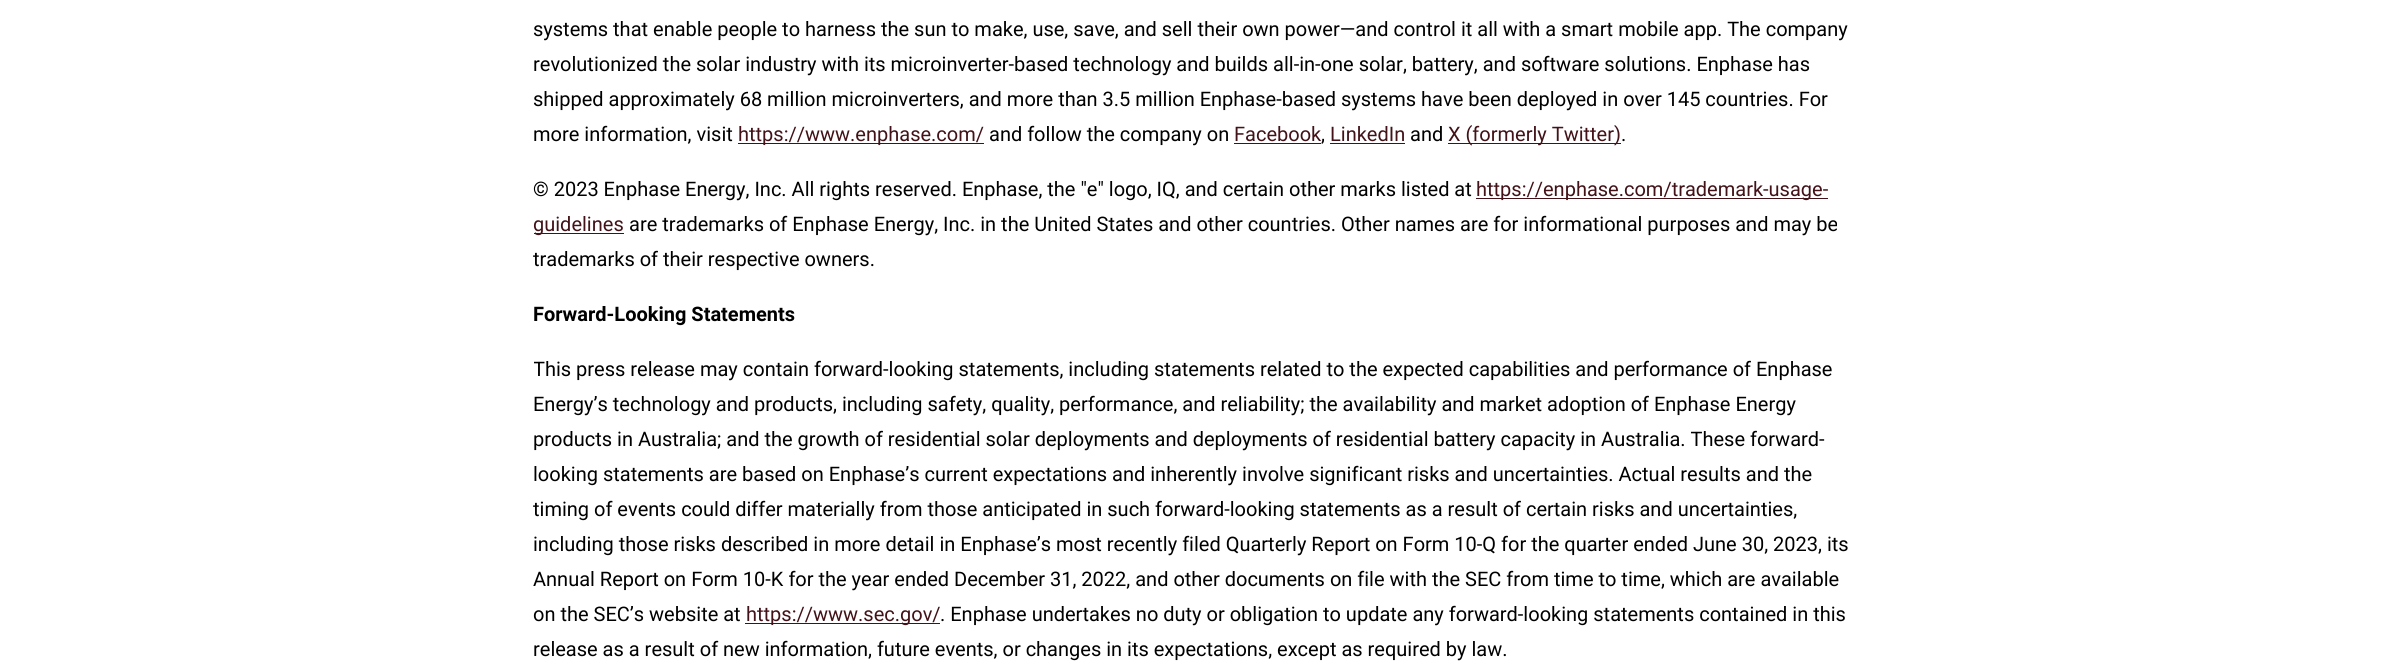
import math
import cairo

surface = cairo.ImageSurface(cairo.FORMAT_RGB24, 2391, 669)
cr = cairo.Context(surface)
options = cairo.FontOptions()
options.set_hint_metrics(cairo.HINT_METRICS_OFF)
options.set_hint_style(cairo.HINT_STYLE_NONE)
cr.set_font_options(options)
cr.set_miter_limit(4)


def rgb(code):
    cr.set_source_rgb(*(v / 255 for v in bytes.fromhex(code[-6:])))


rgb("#ffffff")
cr.paint()
for x, y, w, h, color in [
    (738, 143, 246, 1, "#421218"),
    (1234, 143, 87, 1, "#421218"),
    (1330, 143, 75, 1, "#421218"),
    (1448, 143, 173, 1, "#421218"),
    (1476, 198, 352, 1, "#421218"),
    (534, 233, 90, 1, "#421218"),
    (745, 623, 195, 1, "#421218"),
]:
    rgb(color)
    cr.rectangle(x, y, w, h)
    cr.fill()
cr.select_font_face("Roboto")
cr.set_font_size(20)
rgb("#000000")
for x, y, s in [
    (533, 36, "systems that enable people to harness the sun to make, use, save, and sell their own power—and control it all with a smart mobile app. The company"),
    (533, 71, "revolutionized the solar industry with its microinverter-based technology and builds all-in-one solar, battery, and software solutions. Enphase has"),
    (533, 106, "shipped approximately 68 million microinverters, and more than 3.5 million Enphase-based systems have been deployed in over 145 countries. For"),
    (533, 141, "more information, visit"),
]:
    cr.move_to(x, y)
    cr.show_text(s)
rgb("#421218")
cr.move_to(738, 141)
cr.show_text("https://www.enphase.com/")
rgb("#000000")
cr.move_to(989, 141)
cr.show_text("and follow the company on")
rgb("#421218")
cr.move_to(1234, 141)
cr.show_text("Facebook")
rgb("#000000")
cr.move_to(1321, 141)
cr.show_text(",")
rgb("#421218")
cr.move_to(1330, 141)
cr.show_text("LinkedIn")
rgb("#000000")
cr.move_to(1410, 141)
cr.show_text("and")
rgb("#421218")
cr.move_to(1448, 141)
cr.show_text("X (formerly Twitter)")
rgb("#000000")
cr.move_to(1621, 141)
cr.show_text(".")
cr.move_to(533, 196)
cr.show_text("© 2023 Enphase Energy, Inc. All rights reserved. Enphase, the \"e\" logo, IQ, and certain other marks listed at")
rgb("#421218")
cr.move_to(1476, 196)
cr.show_text("https://enphase.com/trademark-usage-")
cr.move_to(533, 231)
cr.show_text("guidelines")
rgb("#000000")
cr.move_to(629, 231)
cr.show_text("are trademarks of Enphase Energy, Inc. in the United States and other countries. Other names are for informational purposes and may be")
cr.move_to(533, 266)
cr.show_text("trademarks of their respective owners.")
cr.select_font_face("Roboto", cairo.FONT_SLANT_NORMAL, cairo.FONT_WEIGHT_BOLD)
cr.move_to(533, 321)
cr.show_text("Forward-Looking Statements")
cr.save()
cr.rectangle(534, 0, 1325, 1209)
cr.clip()
cr.select_font_face("Roboto")
cr.move_to(533, 376)
cr.show_text("This press release may contain forward-looking statements, including statements related to the expected capabilities and performance of Enphase")
cr.restore()
cr.select_font_face("Roboto")
for x, y, s in [
    (533, 411, "Energy’s technology and products, including safety, quality, performance, and reliability; the availability and market adoption of Enphase Energy"),
    (533, 446, "products in Australia; and the growth of residential solar deployments and deployments of residential battery capacity in Australia. These forward-"),
    (533, 481, "looking statements are based on Enphase’s current expectations and inherently involve significant risks and uncertainties. Actual results and the"),
    (533, 516, "timing of events could differ materially from those anticipated in such forward-looking statements as a result of certain risks and uncertainties,"),
    (533, 551, "including those risks described in more detail in Enphase’s most recently filed Quarterly Report on Form 10-Q for the quarter ended June 30, 2023, its"),
    (533, 586, "Annual Report on Form 10-K for the year ended December 31, 2022, and other documents on file with the SEC from time to time, which are available"),
    (533, 621, "on the SEC’s website at"),
]:
    cr.move_to(x, y)
    cr.show_text(s)
rgb("#421218")
cr.move_to(746, 621)
cr.show_text("https://www.sec.gov/")
rgb("#000000")
cr.move_to(940, 621)
cr.show_text(". Enphase undertakes no duty or obligation to update any forward-looking statements contained in this")
cr.move_to(533, 656)
cr.show_text("release as a result of new information, future events, or changes in its expectations, except as required by law.")
surface.write_to_png("page.png")
